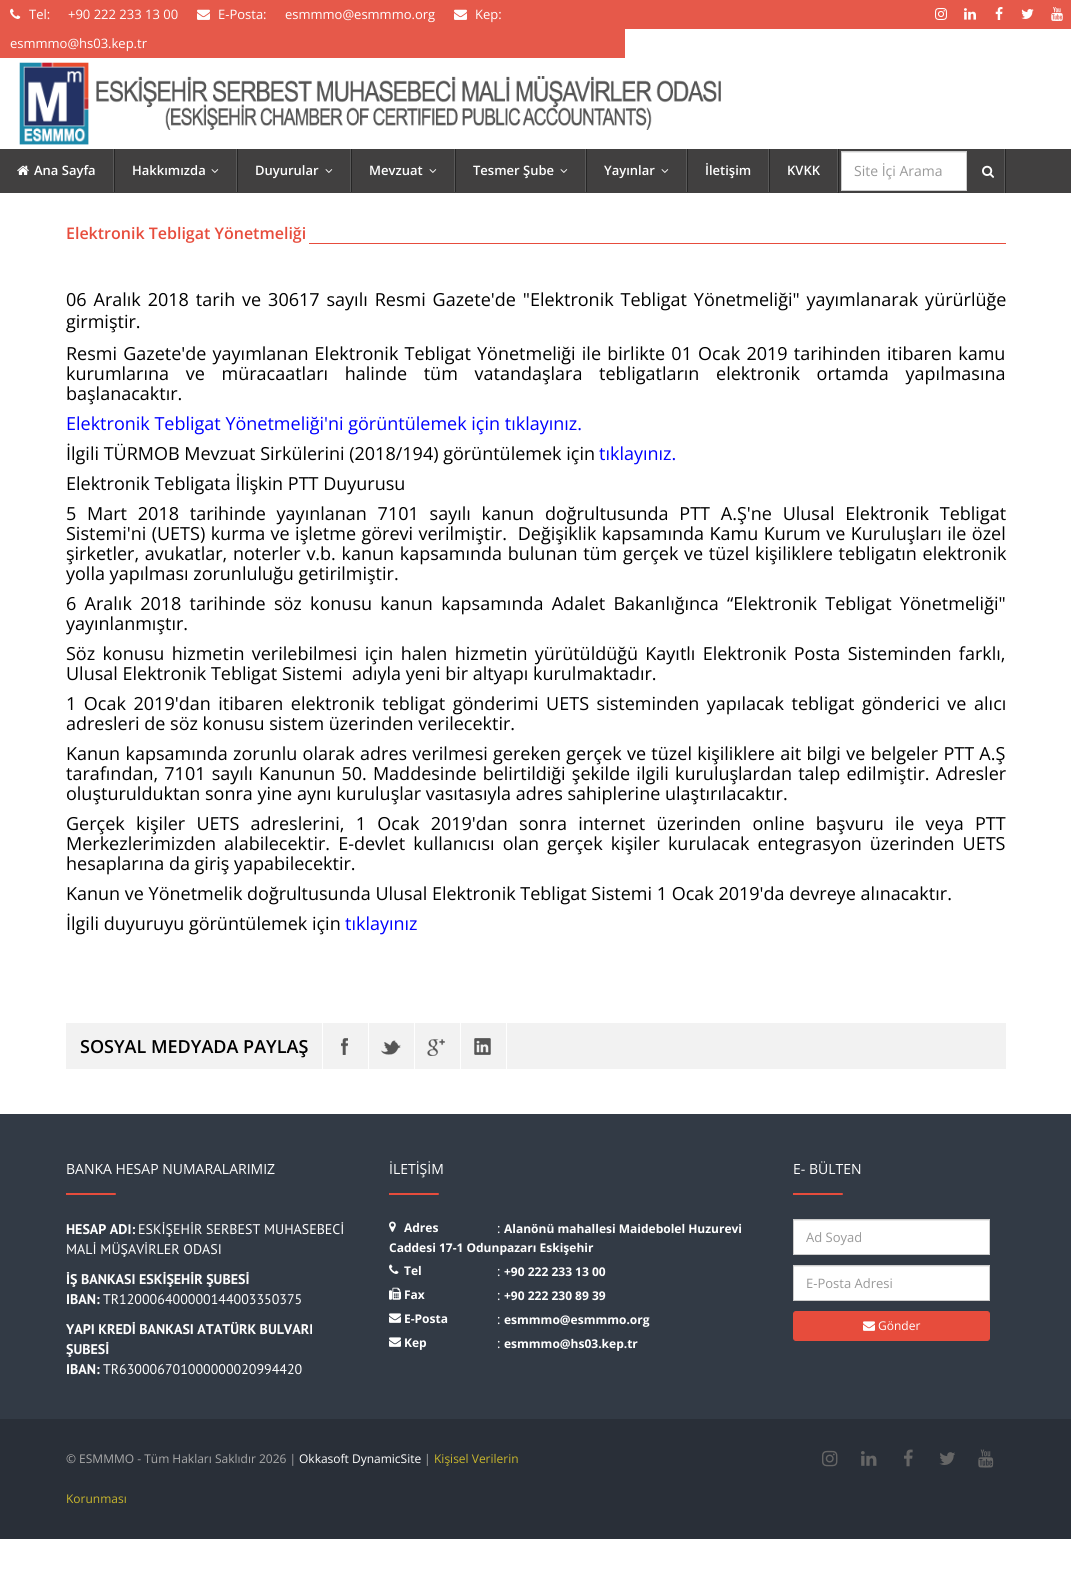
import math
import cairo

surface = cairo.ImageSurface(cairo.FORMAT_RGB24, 1071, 1573)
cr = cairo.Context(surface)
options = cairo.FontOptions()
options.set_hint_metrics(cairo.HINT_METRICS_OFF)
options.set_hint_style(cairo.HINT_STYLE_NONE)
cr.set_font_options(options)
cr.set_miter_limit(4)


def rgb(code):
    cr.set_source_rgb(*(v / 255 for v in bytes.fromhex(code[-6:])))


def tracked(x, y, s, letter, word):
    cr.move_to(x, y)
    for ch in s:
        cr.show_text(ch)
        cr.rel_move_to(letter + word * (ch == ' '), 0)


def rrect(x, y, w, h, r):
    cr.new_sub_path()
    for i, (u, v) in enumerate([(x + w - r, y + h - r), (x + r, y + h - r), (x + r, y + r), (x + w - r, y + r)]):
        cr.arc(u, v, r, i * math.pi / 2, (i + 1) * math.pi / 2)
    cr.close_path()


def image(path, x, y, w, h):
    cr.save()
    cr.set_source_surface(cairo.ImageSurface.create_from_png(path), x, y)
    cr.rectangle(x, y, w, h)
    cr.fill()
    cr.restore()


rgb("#ffffff")
cr.paint()
rgb("#e6594a")
cr.rectangle(0, 0, 625, 58)
cr.fill()
image("img/1.png", 454, 9, 13, 11)
image("img/2.png", 10, 8, 11, 11)
image("img/1.png", 197, 9, 13, 11)
cr.rectangle(625, 0, 446, 29)
cr.fill()
image("img/3.png", 935, 8, 12, 12)
image("img/4.png", 964, 8, 12, 12)
image("img/5.png", 995, 7, 8, 13)
image("img/6.png", 1021, 9, 13, 10)
image("img/7.png", 1051, 7, 12, 14)
image("img/8.png", 19, 62, 70, 83)
image("img/9.png", 96, 76, 625, 54)
for x, y, w, h, color in [
    (0, 149, 1071, 44, "#414040"),
    (1005, 149, 1, 44, "#262626"),
    (113, 149, 1, 43, "#595959"),
]:
    rgb(color)
    cr.rectangle(x, y, w, h)
    cr.fill()
image("img/10.png", 17, 165, 12, 10)
cr.rectangle(236, 149, 1, 43)
cr.fill()
rgb("#262626")
cr.rectangle(114, 149, 1, 43)
cr.fill()
image("img/11.png", 211, 169, 8, 4)
rgb("#595959")
cr.rectangle(350, 149, 1, 43)
cr.fill()
rgb("#262626")
cr.rectangle(237, 149, 1, 43)
cr.fill()
image("img/11.png", 325, 169, 8, 4)
rgb("#595959")
cr.rectangle(454, 149, 1, 43)
cr.fill()
rgb("#262626")
cr.rectangle(351, 149, 1, 43)
cr.fill()
image("img/11.png", 429, 169, 8, 4)
rgb("#595959")
cr.rectangle(585, 149, 1, 43)
cr.fill()
rgb("#262626")
cr.rectangle(455, 149, 1, 43)
cr.fill()
image("img/11.png", 560, 169, 8, 4)
rgb("#595959")
cr.rectangle(686, 149, 1, 43)
cr.fill()
rgb("#262626")
cr.rectangle(586, 149, 1, 43)
cr.fill()
image("img/11.png", 661, 169, 8, 4)
for x, y, w, h, color in [
    (768, 149, 1, 43, "#595959"),
    (687, 149, 1, 43, "#262626"),
    (837, 149, 1, 43, "#595959"),
    (769, 149, 1, 43, "#262626"),
    (1004, 149, 1, 44, "#595959"),
    (838, 149, 1, 44, "#262626"),
    (842, 153, 124, 37, "#ffffff"),
    (842, 152, 124, 1, "#ececec"),
]:
    rgb(color)
    cr.rectangle(x, y, w, h)
    cr.fill()
cr.rectangle(841.5, 151.5, 125, 39)
rgb("#cccccc")
cr.set_line_width(1)
cr.stroke()
image("img/12.png", 982, 165, 12, 13)
for x, y, w, h, color in [
    (309, 243, 697, 1, "#e74c3c"),
    (66, 1023, 940, 46, "#f2f2f2"),
    (322, 1023, 1, 46, "#ffffff"),
    (368, 1023, 1, 46, "#ffffff"),
]:
    rgb(color)
    cr.rectangle(x, y, w, h)
    cr.fill()
image("img/13.png", 341, 1038, 7, 17)
cr.rectangle(414, 1023, 1, 46)
cr.fill()
image("img/14.png", 381, 1040, 20, 15)
cr.rectangle(460, 1023, 1, 46)
cr.fill()
image("img/15.png", 427, 1039, 18, 17)
cr.rectangle(506, 1023, 1, 46)
cr.fill()
image("img/16.png", 474, 1038, 17, 17)
rgb("#323a45")
cr.rectangle(0, 1114, 1071, 305)
cr.fill()
rgb("#e74c3c")
cr.new_path()
cr.move_to(66, 1193)
cr.line_to(115, 1193)
cr.curve_to(115.5, 1193, 116, 1193.5, 116, 1194)
cr.curve_to(116, 1194.5, 115.5, 1195, 115, 1195)
cr.line_to(66, 1195)
cr.close_path()
cr.fill()
cr.new_path()
cr.move_to(389, 1193)
cr.line_to(438, 1193)
cr.curve_to(438.5, 1193, 439, 1193.5, 439, 1194)
cr.curve_to(439, 1194.5, 438.5, 1195, 438, 1195)
cr.line_to(389, 1195)
cr.close_path()
cr.fill()
image("img/17.png", 389, 1221, 7, 11)
image("img/18.png", 389, 1264, 10, 10)
image("img/19.png", 389, 1287, 12, 13)
image("img/20.png", 389, 1313, 12, 10)
image("img/20.png", 389, 1337, 12, 10)
cr.new_path()
cr.move_to(793, 1193)
cr.line_to(842, 1193)
cr.curve_to(842.5, 1193, 843, 1193.5, 843, 1194)
cr.curve_to(843, 1194.5, 842.5, 1195, 842, 1195)
cr.line_to(793, 1195)
cr.close_path()
cr.fill()
rgb("#ffffff")
cr.rectangle(794, 1221, 195, 33)
cr.fill()
rgb("#ececec")
cr.rectangle(794, 1220, 195, 1)
cr.fill()
cr.rectangle(793.5, 1219.5, 196, 35)
rgb("#cccccc")
cr.stroke()
rgb("#ffffff")
cr.rectangle(794, 1267, 195, 33)
cr.fill()
rgb("#ececec")
cr.rectangle(794, 1266, 195, 1)
cr.fill()
cr.rectangle(793.5, 1265.5, 196, 35)
rgb("#cccccc")
cr.stroke()
rgb("#e74c3c")
rrect(793.5, 1311.5, 196, 29, 2.5)
cr.fill_preserve()
cr.stroke()
image("img/21.png", 863, 1321, 12, 10)
rgb("#292f38")
cr.rectangle(0, 1419, 1071, 120)
cr.fill()
image("img/22.png", 822, 1450, 16, 17)
image("img/23.png", 861, 1451, 16, 15)
image("img/24.png", 904, 1449, 9, 18)
image("img/25.png", 939, 1452, 16, 13)
image("img/26.png", 978, 1449, 16, 19)
cr.select_font_face("Open Sans")
cr.set_font_size(13)
rgb("#ffffff")
for x, y, s in [
    (475, 19, "Kep:"),
    (10, 48, "esmmmo@hs03.kep.tr"),
    (29, 19, "Tel:"),
    (68, 19, "+90 222 233 13 00"),
    (218, 19, "E-Posta:"),
    (285, 19, "esmmmo@esmmmo.org"),
]:
    cr.move_to(x, y)
    cr.show_text(s)
cr.select_font_face("Open Sans SemiBold")
for x, y, s in [
    (34, 175, "Ana Sayfa"),
    (132, 175, "Hakkımızda"),
    (255, 175, "Duyurular"),
    (369, 175, "Mevzuat"),
    (473, 175, "Tesmer Şube"),
    (604, 175, "Yayınlar"),
    (705, 175, "İletişim"),
    (787, 175, "KVKK"),
]:
    cr.move_to(x, y)
    cr.show_text(s)
cr.select_font_face("Open Sans")
cr.set_font_size(14)
rgb("#999999")
cr.move_to(854, 176)
cr.show_text("Site İçi Arama")
cr.select_font_face("Open Sans SemiBold")
cr.set_font_size(16)
rgb("#e74c3c")
cr.move_to(66, 239)
cr.show_text("Elektronik Tebligat Yönetmeliği")
cr.select_font_face("Open Sans")
cr.set_font_size(18)
rgb("#000000")
tracked(66, 306, "06 Aralık 2018 tarih ve 30617 sayılı Resmi Gazete'de \"Elektronik Tebligat Yönetmeliği\" yayımlanarak yürürlüğe", 0, 2.25)
cr.move_to(66, 328)
cr.show_text("girmiştir.")
tracked(66, 360, "Resmi Gazete'de yayımlanan Elektronik Tebligat Yönetmeliği ile birlikte 01 Ocak 2019 tarihinden itibaren kamu", 0, 1.5)
tracked(66, 380, "kurumlarına ve müracaatları halinde tüm vatandaşlara tebligatların elektronik ortamda yapılmasına", 0, 12)
cr.move_to(66, 400)
cr.show_text("başlanacaktır.")
rgb("#0000ff")
cr.move_to(66, 430)
cr.show_text("Elektronik Tebligat Yönetmeliği'ni görüntülemek için tıklayınız.")
rgb("#000000")
cr.move_to(66, 460)
cr.show_text("İlgili TÜRMOB Mevzuat Sirkülerini (2018/194) görüntülemek için")
rgb("#0000ff")
cr.move_to(599, 460)
cr.show_text("tıklayınız.")
rgb("#000000")
cr.move_to(66, 490)
cr.show_text("Elektronik Tebligata İlişkin PTT Duyurusu")
tracked(66, 520, "5 Mart 2018 tarihinde yayınlanan 7101 sayılı kanun doğrultusunda PTT A.Ş'ne Ulusal Elektronik Tebligat", 0, 6.1)
tracked(66, 540, "Sistemi'ni (UETS) kurma ve işletme görevi verilmiştir.  Değişiklik kapsamında Kamu Kurum ve Kuruluşları ile özel", 0, 0.75)
tracked(66, 560, "şirketler, avukatlar, noterler v.b. kanun kapsamında bulunan tüm gerçek ve tüzel kişiliklere tebligatın elektronik", 0, 1)
cr.move_to(66, 580)
cr.show_text("yolla yapılması zorunluluğu getirilmiştir.")
tracked(66, 610, "6 Aralık 2018 tarihinde söz konusu kanun kapsamında Adalet Bakanlığınca “Elektronik Tebligat Yönetmeliği\"", 0, 3.6)
cr.move_to(66, 630)
cr.show_text("yayınlanmıştır.")
tracked(66, 660, "Söz konusu hizmetin verilebilmesi için halen hizmetin yürütüldüğü Kayıtlı Elektronik Posta Sisteminden farklı,", 0, 2.6)
cr.move_to(66, 680)
cr.show_text("Ulusal Elektronik Tebligat Sistemi  adıyla yeni bir altyapı kurulmaktadır.")
tracked(66, 710, "1 Ocak 2019'dan itibaren elektronik tebligat gönderimi UETS sisteminden yapılacak tebligat gönderici ve alıcı", 0, 2.9)
cr.move_to(66, 730)
cr.show_text("adresleri de söz konusu sistem üzerinden verilecektir.")
tracked(66, 760, "Kanun kapsamında zorunlu olarak adres verilmesi gereken gerçek ve tüzel kişiliklere ait bilgi ve belgeler PTT A.Ş", 0, 0.6)
tracked(66, 780, "tarafından, 7101 sayılı Kanunun 50. Maddesinde belirtildiği şekilde ilgili kuruluşlardan talep edilmiştir. Adresler", 0, 1.5)
cr.move_to(66, 800)
cr.show_text("oluşturulduktan sonra yine aynı kuruluşlar vasıtasıyla adres sahiplerine ulaştırılacaktır.")
tracked(66, 830, "Gerçek kişiler UETS adreslerini, 1 Ocak 2019'dan sonra internet üzerinden online başvuru ile veya PTT", 0, 6.6)
tracked(66, 850, "Merkezlerimizden alabilecektir. E-devlet kullanıcısı olan gerçek kişiler kurulacak entegrasyon üzerinden UETS", 0, 3.4)
for x, y, s in [
    (66, 870, "hesaplarına da giriş yapabilecektir."),
    (66, 900, "Kanun ve Yönetmelik doğrultusunda Ulusal Elektronik Tebligat Sistemi 1 Ocak 2019'da devreye alınacaktır."),
    (66, 930, "İlgili duyuruyu görüntülemek için"),
]:
    cr.move_to(x, y)
    cr.show_text(s)
rgb("#0000ff")
cr.move_to(345, 930)
cr.show_text("tıklayınız")
cr.select_font_face("Open Sans SemiBold")
rgb("#000000")
cr.move_to(80, 1053)
cr.show_text("SOSYAL MEDYADA PAYLAŞ")
cr.select_font_face("Open Sans")
cr.set_font_size(14)
rgb("#ffffff")
cr.move_to(66, 1174)
cr.show_text("BANKA HESAP NUMARALARIMIZ")
cr.select_font_face("PT Sans", cairo.FONT_SLANT_NORMAL, cairo.FONT_WEIGHT_BOLD)
cr.move_to(66, 1234)
cr.show_text("HESAP ADI:")
cr.select_font_face("PT Sans")
cr.move_to(138, 1234)
cr.show_text("ESKİŞEHİR SERBEST MUHASEBECİ")
cr.move_to(66, 1254)
cr.show_text("MALİ MÜŞAVİRLER ODASI")
cr.select_font_face("PT Sans", cairo.FONT_SLANT_NORMAL, cairo.FONT_WEIGHT_BOLD)
cr.move_to(66, 1284)
cr.show_text("İŞ BANKASI ESKİŞEHİR ŞUBESİ")
cr.move_to(66, 1304)
cr.show_text("IBAN:")
cr.select_font_face("PT Sans")
cr.move_to(103, 1304)
cr.show_text("TR120006400000144003350375")
cr.select_font_face("PT Sans", cairo.FONT_SLANT_NORMAL, cairo.FONT_WEIGHT_BOLD)
for x, y, s in [
    (66, 1334, "YAPI KREDİ BANKASI ATATÜRK BULVARI"),
    (66, 1354, "ŞUBESİ"),
    (66, 1374, "IBAN:"),
]:
    cr.move_to(x, y)
    cr.show_text(s)
cr.select_font_face("PT Sans")
cr.move_to(103, 1374)
cr.show_text("TR630006701000000020994420")
cr.select_font_face("Open Sans")
cr.move_to(389, 1174)
cr.show_text("İLETİŞİM")
cr.select_font_face("Open Sans", cairo.FONT_SLANT_NORMAL, cairo.FONT_WEIGHT_BOLD)
cr.set_font_size(12)
cr.move_to(404, 1232)
cr.show_text("Adres")
cr.select_font_face("Open Sans")
cr.set_font_size(13)
cr.move_to(497, 1233)
cr.show_text(":")
cr.select_font_face("Open Sans", cairo.FONT_SLANT_NORMAL, cairo.FONT_WEIGHT_BOLD)
cr.set_font_size(12)
for x, y, s in [
    (504, 1233, "Alanönü mahallesi Maidebolel Huzurevi"),
    (389, 1252, "Caddesi 17-1 Odunpazarı Eskişehir"),
    (404, 1275, "Tel"),
]:
    cr.move_to(x, y)
    cr.show_text(s)
cr.select_font_face("Open Sans")
cr.set_font_size(13)
cr.move_to(497, 1276)
cr.show_text(":")
cr.select_font_face("Open Sans", cairo.FONT_SLANT_NORMAL, cairo.FONT_WEIGHT_BOLD)
cr.set_font_size(12)
cr.move_to(504, 1276)
cr.show_text("+90 222 233 13 00")
cr.move_to(404, 1299)
cr.show_text("Fax")
cr.select_font_face("Open Sans")
cr.set_font_size(13)
cr.move_to(497, 1300)
cr.show_text(":")
cr.select_font_face("Open Sans", cairo.FONT_SLANT_NORMAL, cairo.FONT_WEIGHT_BOLD)
cr.set_font_size(12)
cr.move_to(504, 1300)
cr.show_text("+90 222 230 89 39")
cr.move_to(404, 1323)
cr.show_text("E-Posta")
cr.select_font_face("Open Sans")
cr.set_font_size(13)
cr.move_to(497, 1324)
cr.show_text(":")
cr.select_font_face("Open Sans", cairo.FONT_SLANT_NORMAL, cairo.FONT_WEIGHT_BOLD)
cr.set_font_size(12)
cr.move_to(504, 1324)
cr.show_text("esmmmo@esmmmo.org")
cr.move_to(404, 1347)
cr.show_text("Kep")
cr.select_font_face("Open Sans")
cr.set_font_size(13)
cr.move_to(497, 1348)
cr.show_text(":")
cr.select_font_face("Open Sans", cairo.FONT_SLANT_NORMAL, cairo.FONT_WEIGHT_BOLD)
cr.set_font_size(12)
cr.move_to(504, 1348)
cr.show_text("esmmmo@hs03.kep.tr")
cr.select_font_face("Open Sans")
cr.set_font_size(14)
cr.move_to(793, 1174)
cr.show_text("E- BÜLTEN")
cr.set_font_size(13)
rgb("#999999")
cr.move_to(806, 1242)
cr.show_text("Ad Soyad")
cr.move_to(806, 1288)
cr.show_text("E-Posta Adresi")
cr.set_font_size(12)
rgb("#ffffff")
cr.move_to(878, 1330)
cr.show_text("Gönder")
rgb("#aaaaaa")
cr.move_to(66, 1463)
cr.show_text("© ESMMMO - Tüm Hakları Saklıdır 2026 |")
rgb("#ffffff")
cr.move_to(299, 1463)
cr.show_text("Okkasoft DynamicSite")
rgb("#aaaaaa")
cr.move_to(424, 1463)
cr.show_text("|")
rgb("#c8b62c")
cr.move_to(434, 1463)
cr.show_text("Kişisel Verilerin")
cr.move_to(66, 1503)
cr.show_text("Korunması")
surface.write_to_png("page.png")
